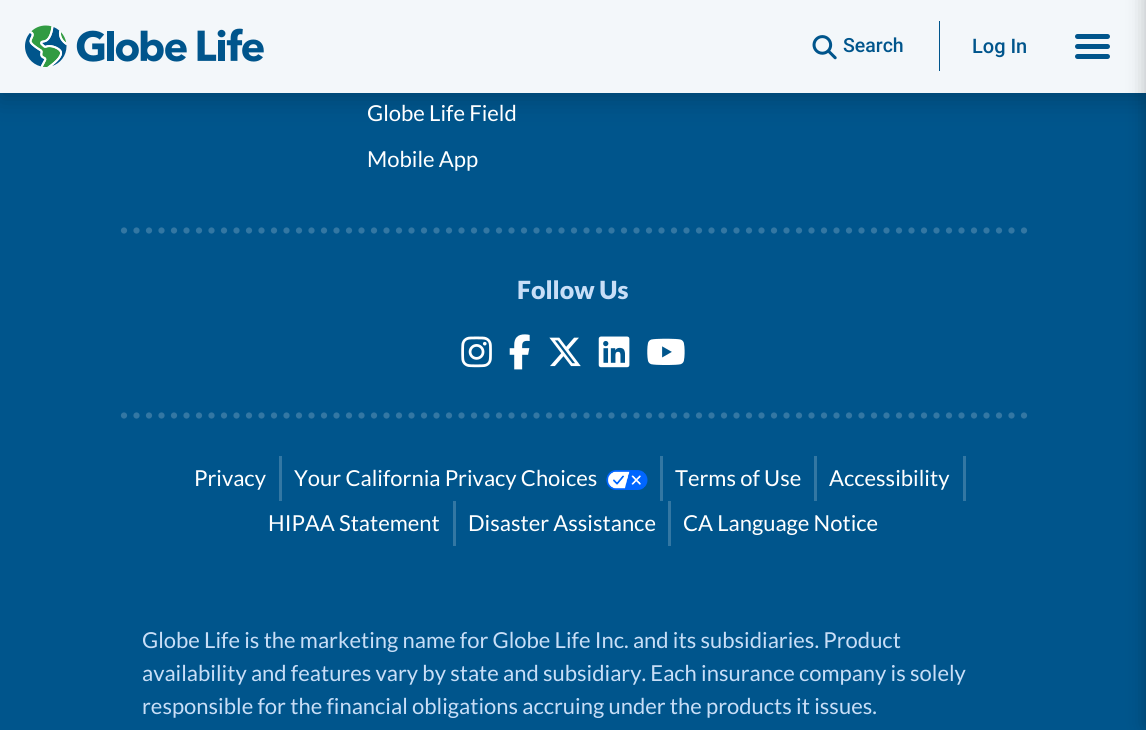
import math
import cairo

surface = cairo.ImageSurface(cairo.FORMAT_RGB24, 1146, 730)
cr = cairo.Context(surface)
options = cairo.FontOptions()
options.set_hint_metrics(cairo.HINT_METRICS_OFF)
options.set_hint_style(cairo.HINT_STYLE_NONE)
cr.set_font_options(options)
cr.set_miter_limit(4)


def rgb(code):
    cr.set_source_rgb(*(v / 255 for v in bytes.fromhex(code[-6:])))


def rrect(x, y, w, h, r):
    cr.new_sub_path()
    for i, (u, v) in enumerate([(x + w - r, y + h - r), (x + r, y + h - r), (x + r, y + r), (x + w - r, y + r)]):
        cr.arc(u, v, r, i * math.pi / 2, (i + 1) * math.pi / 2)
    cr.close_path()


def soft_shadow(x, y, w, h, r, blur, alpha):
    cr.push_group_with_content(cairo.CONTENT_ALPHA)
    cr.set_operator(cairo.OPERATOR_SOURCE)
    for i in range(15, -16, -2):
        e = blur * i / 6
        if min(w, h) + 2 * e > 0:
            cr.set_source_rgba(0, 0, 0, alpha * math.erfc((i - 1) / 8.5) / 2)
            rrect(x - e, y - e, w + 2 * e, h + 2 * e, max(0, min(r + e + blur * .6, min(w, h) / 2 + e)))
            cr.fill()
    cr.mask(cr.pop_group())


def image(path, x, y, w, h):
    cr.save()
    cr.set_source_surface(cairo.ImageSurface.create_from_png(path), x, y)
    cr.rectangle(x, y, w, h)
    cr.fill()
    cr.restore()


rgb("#ffffff")
cr.paint()
rgb("#00558c")
cr.new_path()
cr.move_to(573, -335)
cr.curve_to(890, -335, 1146, -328, 1146, -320)
cr.line_to(1146, 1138)
cr.line_to(0, 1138)
cr.line_to(0, -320)
cr.curve_to(0, -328, 257, -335, 573, -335)
cr.close_path()
cr.fill()
cr.save()
cr.set_fill_rule(cairo.FILL_RULE_EVEN_ODD)
cr.new_path()
cr.move_to(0, 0)
cr.line_to(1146, 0)
cr.line_to(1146, 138)
cr.line_to(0, 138)
cr.close_path()
cr.move_to(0, 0)
cr.line_to(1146, 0)
cr.line_to(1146, 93)
cr.line_to(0, 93)
cr.close_path()
cr.clip()
rgb("#000000")
soft_shadow(0, 6, 1146, 93, 0, 12.5, 0.2)
cr.restore()
cr.set_source_rgba(1, 1, 1, 0.95)
cr.rectangle(0, 0, 1146, 93)
cr.fill()
image("img/1.png", 25, 25, 239, 42)
image("img/2.png", 812, 35, 25, 25)
rgb("#00558c")
cr.rectangle(939, 21, 1, 50)
cr.fill()
rrect(1075, 44, 35, 5, 2.5)
cr.fill()
rrect(1075, 34, 35, 5, 2.5)
cr.fill()
rrect(1075, 54, 35, 5, 2.5)
cr.fill()
rgb("#000000")
soft_shadow(1146, -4, 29, 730, 0, 9.5, 0.25)
cr.new_path()
cr.move_to(124, 230.5)
cr.line_to(1024, 230.5)
rgb("#3377a3")
cr.set_line_width(6.2)
cr.set_line_cap(cairo.LINE_CAP_ROUND)
cr.set_dash([0, 12.5])
cr.stroke()
image("img/3.png", 461, 336, 31, 32)
image("img/4.png", 509, 334, 21, 36)
image("img/5.png", 549, 337, 32, 30)
image("img/6.png", 598, 336, 32, 32)
image("img/7.png", 647, 338, 38, 27)
cr.new_path()
cr.move_to(124, 415.5)
cr.line_to(1024, 415.5)
cr.stroke()
cr.rectangle(279, 456, 3, 45)
cr.fill()
cr.rectangle(660, 456, 3, 45)
cr.fill()
image("img/8.png", 606, 470, 42, 20)
for x, y, w, h, color in [
    (814, 456, 3, 45, "#3377a3"),
    (963, 456, 3, 45, "#3377a3"),
    (453, 501, 3, 45, "#3377a3"),
    (668, 501, 3, 45, "#3377a3"),
]:
    rgb(color)
    cr.rectangle(x, y, w, h)
    cr.fill()
cr.select_font_face("Roboto Medium")
cr.set_font_size(19.5)
rgb("#00558c")
cr.move_to(843, 52)
cr.show_text("Search")
cr.set_font_size(20)
cr.move_to(972, 53)
cr.show_text("Log In")
cr.select_font_face("Lato")
cr.set_font_size(22)
rgb("#ffffff")
cr.move_to(367, 121)
cr.show_text("Globe Life Field")
cr.move_to(367, 167)
cr.show_text("Mobile App")
cr.select_font_face("Lato Black")
cr.set_font_size(25)
rgb("#c8def7")
cr.move_to(517, 299)
cr.show_text("Follow Us")
cr.select_font_face("Lato")
cr.set_font_size(22)
rgb("#ffffff")
for x, y, s in [
    (194, 486, "Privacy"),
    (294, 486, "Your California Privacy Choices"),
    (675, 486, "Terms of Use"),
    (829, 486, "Accessibility"),
    (268, 531, "HIPAA Statement"),
    (468, 531, "Disaster Assistance"),
    (683, 531, "CA Language Notice"),
]:
    cr.move_to(x, y)
    cr.show_text(s)
rgb("#c8def7")
for x, y, s in [
    (142, 648, "Globe Life is the marketing name for Globe Life Inc. and its subsidiaries. Product"),
    (142, 681, "availability and features vary by state and subsidiary. Each insurance company is solely"),
    (142, 714, "responsible for the financial obligations accruing under the products it issues."),
]:
    cr.move_to(x, y)
    cr.show_text(s)
surface.write_to_png("page.png")
